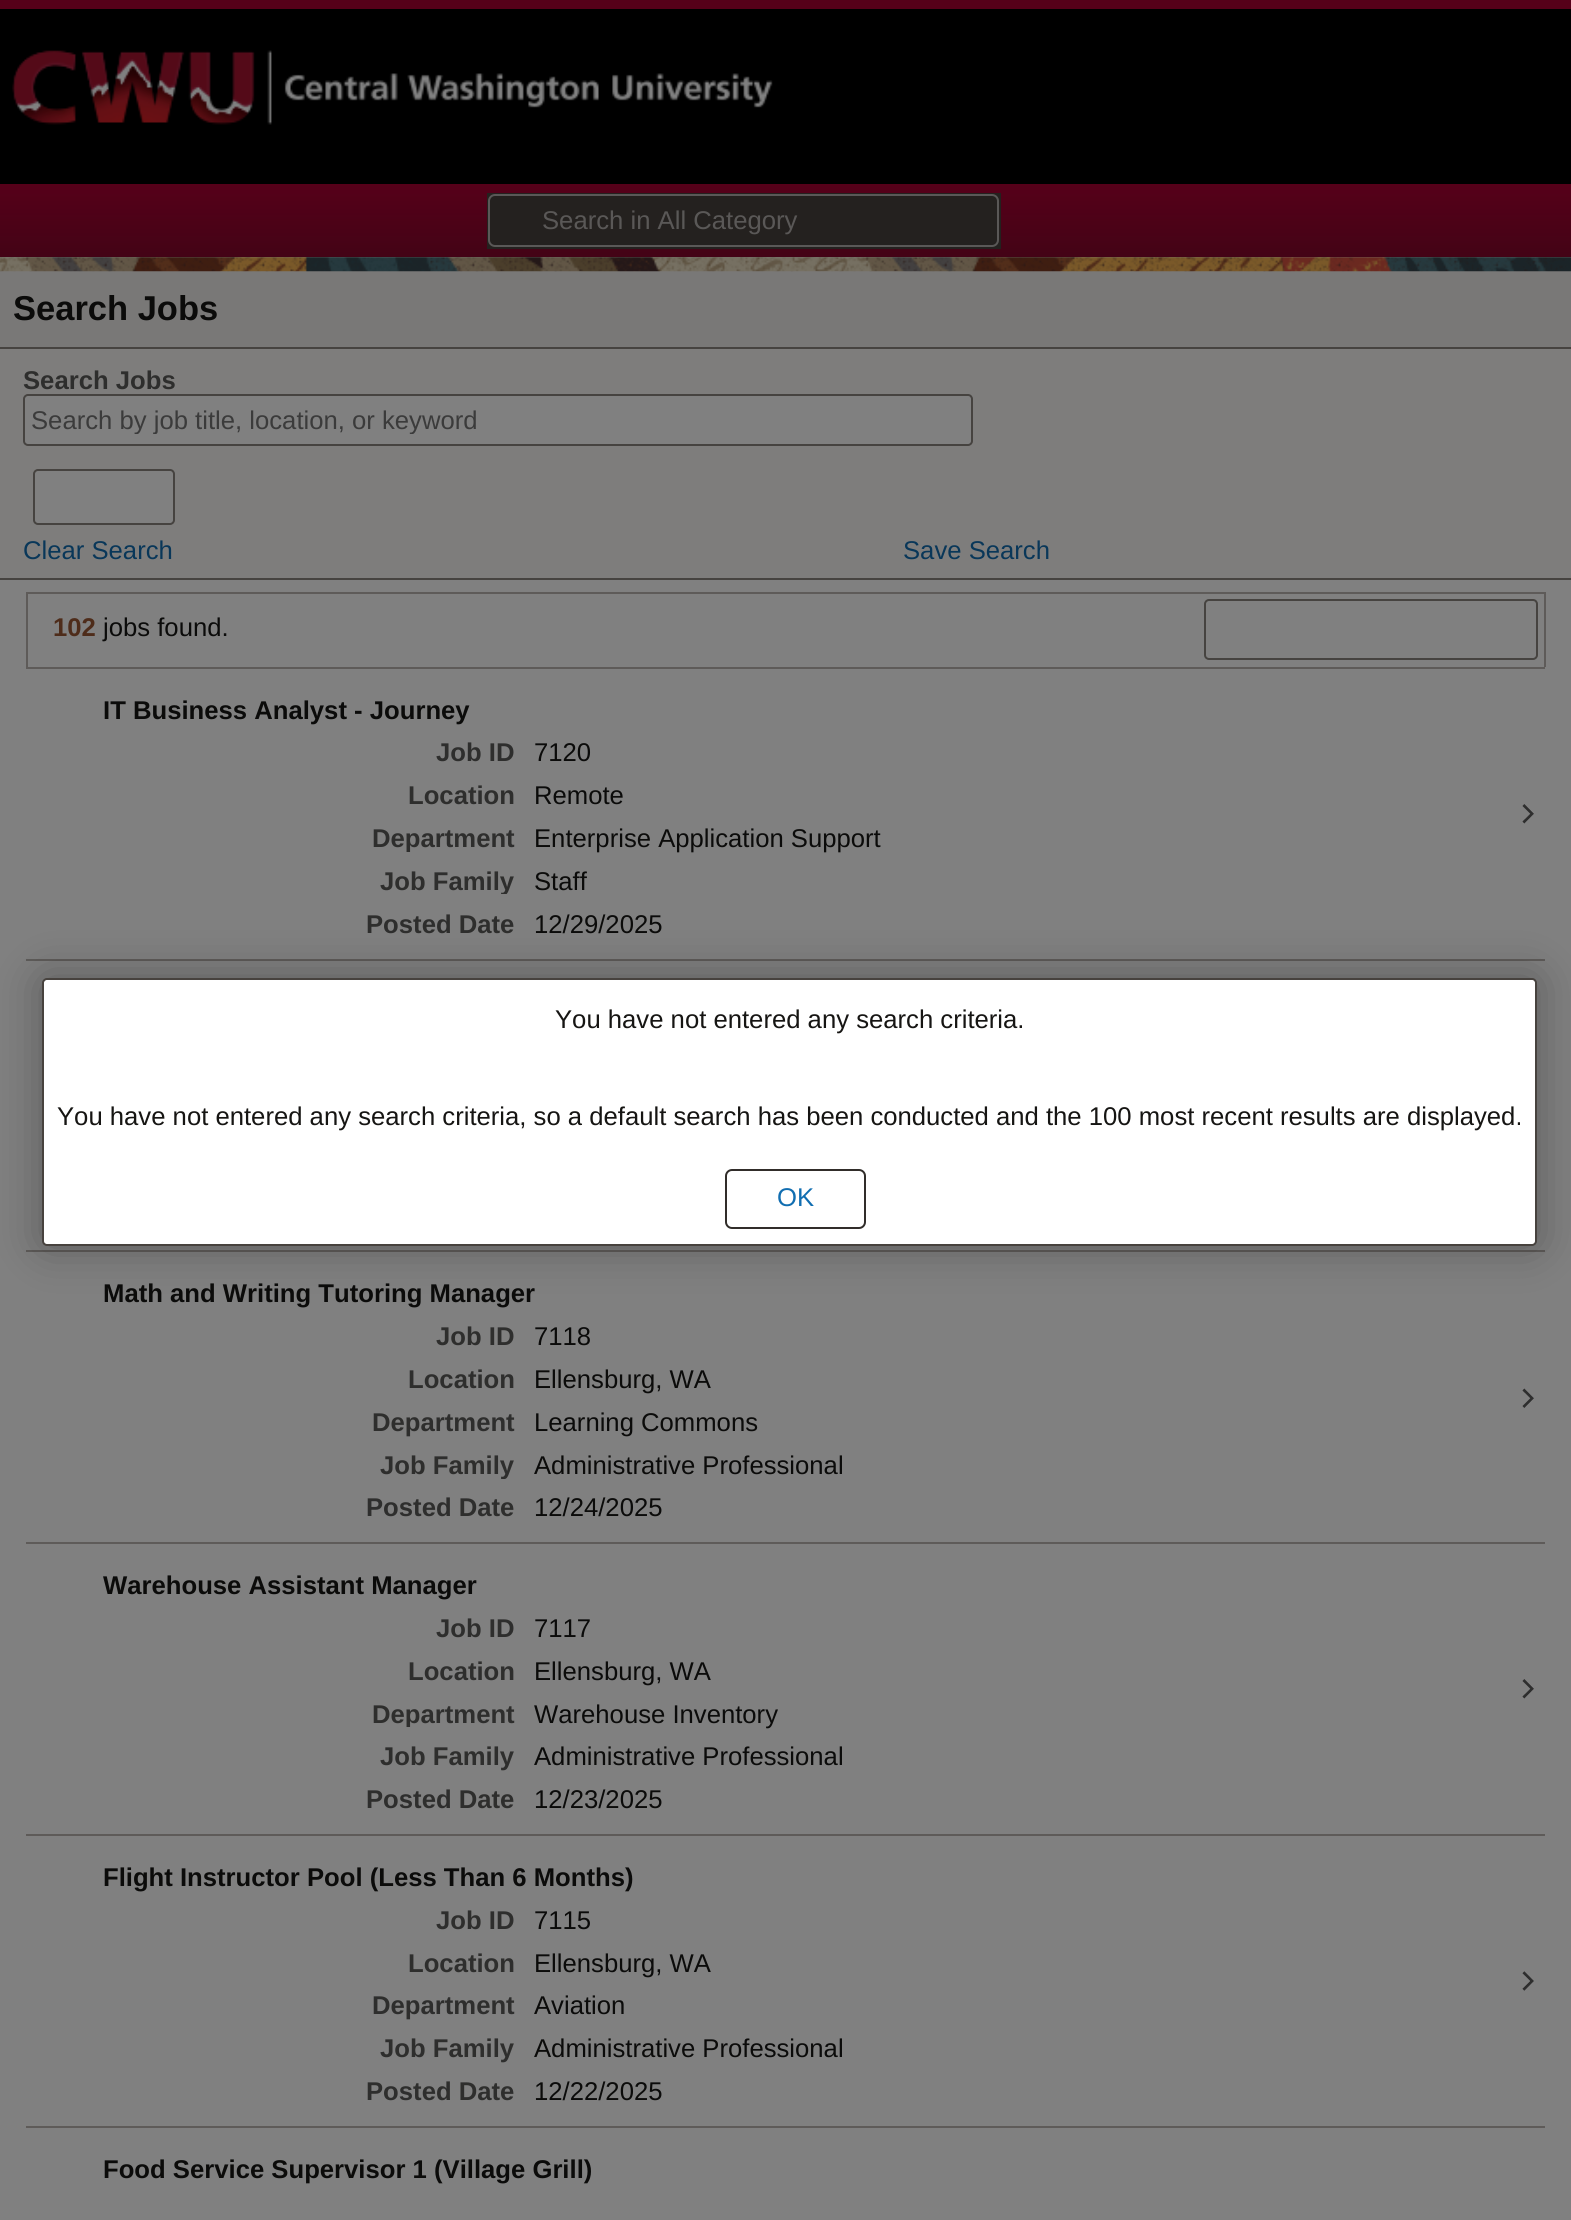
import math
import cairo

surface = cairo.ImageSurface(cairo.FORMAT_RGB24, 1571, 2220)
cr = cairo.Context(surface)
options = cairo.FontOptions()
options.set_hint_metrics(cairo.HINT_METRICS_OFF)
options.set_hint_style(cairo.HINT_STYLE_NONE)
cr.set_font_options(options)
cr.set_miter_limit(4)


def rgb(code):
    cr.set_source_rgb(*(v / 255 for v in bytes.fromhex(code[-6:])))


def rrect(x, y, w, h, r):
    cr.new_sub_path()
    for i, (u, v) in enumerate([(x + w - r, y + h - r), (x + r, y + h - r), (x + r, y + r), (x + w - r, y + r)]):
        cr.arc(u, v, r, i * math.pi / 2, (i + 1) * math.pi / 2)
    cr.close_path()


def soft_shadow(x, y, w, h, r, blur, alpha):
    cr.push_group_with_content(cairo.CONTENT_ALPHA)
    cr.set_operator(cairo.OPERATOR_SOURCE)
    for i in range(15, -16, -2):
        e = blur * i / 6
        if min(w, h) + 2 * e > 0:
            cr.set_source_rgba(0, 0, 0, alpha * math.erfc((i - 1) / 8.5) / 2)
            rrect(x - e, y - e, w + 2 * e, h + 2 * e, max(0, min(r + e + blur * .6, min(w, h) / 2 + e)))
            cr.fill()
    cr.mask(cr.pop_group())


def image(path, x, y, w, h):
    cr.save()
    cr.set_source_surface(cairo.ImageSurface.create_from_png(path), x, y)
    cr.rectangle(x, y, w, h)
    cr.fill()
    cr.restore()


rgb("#808080")
cr.paint()
rgb("#000000")
cr.rectangle(0, 9, 1571, 175)
cr.fill()
rgb("#560019")
cr.rectangle(0, 0, 1571, 9)
cr.fill()
image("img/1.png", 12, 50, 761, 75)
gradient = cairo.LinearGradient(786, 184, 786, 348)
gradient.add_color_stop_rgba(0, 0.337, 0, 0.098, 1)
gradient.add_color_stop_rgba(1, 0.173, 0.031, 0.071, 1)
cr.set_source(gradient)
cr.rectangle(0, 184, 1571, 73)
cr.fill()
rgb("#24211f")
cr.rectangle(487, 193, 514, 56)
cr.fill()
rrect(489, 195, 509, 51, 6)
rgb("#5a5857")
cr.stroke()
rgb("#797877")
cr.rectangle(0, 257, 1571, 90)
cr.fill()
rgb("#464340")
cr.rectangle(0, 347, 1571, 2)
cr.fill()
image("img/2.png", 0, 257, 1571, 15)
rgb("#7e7d7c")
cr.rectangle(0, 349, 1571, 229)
cr.fill()
rgb("#464340")
cr.rectangle(0, 578, 1571, 2)
cr.fill()
rgb("#808080")
rrect(24, 395, 948, 50, 4)
cr.fill_preserve()
rgb("#464340")
cr.stroke()
rgb("#808080")
rrect(34, 470, 140, 54, 4)
cr.fill_preserve()
rgb("#464340")
cr.stroke()
for x, y, w, h, color in [
    (26, 592, 1519, 2, "#5e5b59"),
    (1544, 592, 2, 75, "#5e5b59"),
    (26, 592, 2, 75, "#5e5b59"),
]:
    rgb(color)
    cr.rectangle(x, y, w, h)
    cr.fill()
rrect(1205, 600, 332, 59, 4)
rgb("#464340")
cr.stroke()
rgb("#5e5b59")
cr.rectangle(26, 667, 1519, 2)
cr.fill()
cr.rectangle(26, 959, 1519, 2)
cr.fill()
image("img/3.png", 1522, 804, 12, 20)
cr.rectangle(26, 1250, 1519, 2)
cr.fill()
cr.rectangle(26, 1542, 1519, 2)
cr.fill()
image("img/4.png", 1522, 1388, 12, 20)
cr.rectangle(26, 1834, 1519, 2)
cr.fill()
image("img/3.png", 1522, 1679, 12, 20)
cr.rectangle(26, 2126, 1519, 2)
cr.fill()
image("img/5.png", 1522, 1971, 12, 20)
rgb("#000000")
soft_shadow(42, 978, 1495, 268, 5, 22, 0.3)
rgb("#ffffff")
rrect(43, 979, 1493, 266, 4)
cr.fill_preserve()
rgb("#47423e")
cr.stroke()
rgb("#ffffff")
rrect(44, 980, 1491, 263, 5)
cr.fill()
rrect(726, 1170, 139, 58, 6)
rgb("#312d2a")
cr.stroke()
cr.select_font_face("Liberation Sans")
cr.set_font_size(25.67)
rgb("#5a5857")
cr.move_to(542, 229)
cr.show_text("Search in All Category")
cr.select_font_face("Liberation Sans", cairo.FONT_SLANT_NORMAL, cairo.FONT_WEIGHT_BOLD)
cr.set_font_size(34.5)
rgb("#0b0b0a")
cr.move_to(13, 320)
cr.show_text("Search Jobs")
cr.set_font_size(25.67)
rgb("#2e2e2d")
cr.move_to(23, 389)
cr.show_text("Search Jobs")
cr.save()
cr.rectangle(32, 406, 932, 28)
cr.clip()
cr.select_font_face("Liberation Sans")
rgb("#3b3b3b")
cr.move_to(31, 429)
cr.show_text("Search by job title, location, or keyword")
cr.restore()
cr.select_font_face("Liberation Sans")
rgb("#093759")
cr.move_to(23, 559)
cr.show_text("Clear Search")
cr.move_to(903, 559)
cr.show_text("Save Search")
cr.select_font_face("Liberation Sans", cairo.FONT_SLANT_NORMAL, cairo.FONT_WEIGHT_BOLD)
rgb("#4e2c1a")
cr.move_to(53, 636)
cr.show_text("102")
cr.select_font_face("Liberation Sans")
rgb("#0b0b0a")
cr.move_to(103, 636)
cr.show_text("jobs found.")
cr.select_font_face("Liberation Sans", cairo.FONT_SLANT_NORMAL, cairo.FONT_WEIGHT_BOLD)
cr.move_to(103, 719)
cr.show_text("IT Business Analyst - Journey")
rgb("#2e2e2d")
cr.move_to(436, 761)
cr.show_text("Job ID")
cr.select_font_face("Liberation Sans")
rgb("#0b0b0a")
cr.move_to(534, 761)
cr.show_text("7120")
cr.select_font_face("Liberation Sans", cairo.FONT_SLANT_NORMAL, cairo.FONT_WEIGHT_BOLD)
rgb("#2e2e2d")
cr.move_to(408, 804)
cr.show_text("Location")
cr.select_font_face("Liberation Sans")
rgb("#0b0b0a")
cr.move_to(534, 804)
cr.show_text("Remote")
cr.save()
cr.rectangle(51, 824, 483, 28)
cr.clip()
cr.select_font_face("Liberation Sans", cairo.FONT_SLANT_NORMAL, cairo.FONT_WEIGHT_BOLD)
rgb("#2e2e2d")
cr.move_to(372, 847)
cr.show_text("Department")
cr.restore()
cr.move_to(534, 847)
cr.show_text("Enterprise Application Support")
cr.save()
cr.rectangle(51, 866, 483, 28)
cr.clip()
cr.select_font_face("Liberation Sans", cairo.FONT_SLANT_NORMAL, cairo.FONT_WEIGHT_BOLD)
rgb("#2e2e2d")
cr.move_to(380, 890)
cr.show_text("Job Family")
cr.restore()
cr.move_to(534, 890)
cr.show_text("Staff")
cr.select_font_face("Liberation Sans", cairo.FONT_SLANT_NORMAL, cairo.FONT_WEIGHT_BOLD)
rgb("#2e2e2d")
cr.move_to(366, 933)
cr.show_text("Posted Date")
cr.select_font_face("Liberation Sans")
rgb("#0b0b0a")
cr.move_to(534, 933)
cr.show_text("12/29/2025")
cr.select_font_face("Liberation Sans", cairo.FONT_SLANT_NORMAL, cairo.FONT_WEIGHT_BOLD)
cr.move_to(103, 1302)
cr.show_text("Math and Writing Tutoring Manager")
rgb("#2e2e2d")
cr.move_to(436, 1345)
cr.show_text("Job ID")
cr.select_font_face("Liberation Sans")
rgb("#0b0b0a")
cr.move_to(534, 1345)
cr.show_text("7118")
cr.select_font_face("Liberation Sans", cairo.FONT_SLANT_NORMAL, cairo.FONT_WEIGHT_BOLD)
rgb("#2e2e2d")
cr.move_to(408, 1388)
cr.show_text("Location")
cr.select_font_face("Liberation Sans")
rgb("#0b0b0a")
cr.move_to(534, 1388)
cr.show_text("Ellensburg, WA")
cr.select_font_face("Liberation Sans", cairo.FONT_SLANT_NORMAL, cairo.FONT_WEIGHT_BOLD)
rgb("#2e2e2d")
cr.move_to(372, 1431)
cr.show_text("Department")
cr.select_font_face("Liberation Sans")
rgb("#0b0b0a")
cr.move_to(534, 1431)
cr.show_text("Learning Commons")
cr.save()
cr.rectangle(51, 1451, 483, 28)
cr.clip()
cr.select_font_face("Liberation Sans", cairo.FONT_SLANT_NORMAL, cairo.FONT_WEIGHT_BOLD)
rgb("#2e2e2d")
cr.move_to(380, 1474)
cr.show_text("Job Family")
cr.restore()
cr.move_to(534, 1474)
cr.show_text("Administrative Professional")
cr.select_font_face("Liberation Sans", cairo.FONT_SLANT_NORMAL, cairo.FONT_WEIGHT_BOLD)
rgb("#2e2e2d")
cr.move_to(366, 1516)
cr.show_text("Posted Date")
cr.select_font_face("Liberation Sans")
rgb("#0b0b0a")
cr.move_to(534, 1516)
cr.show_text("12/24/2025")
cr.select_font_face("Liberation Sans", cairo.FONT_SLANT_NORMAL, cairo.FONT_WEIGHT_BOLD)
cr.move_to(103, 1594)
cr.show_text("Warehouse Assistant Manager")
rgb("#2e2e2d")
cr.move_to(436, 1637)
cr.show_text("Job ID")
cr.select_font_face("Liberation Sans")
rgb("#0b0b0a")
cr.move_to(534, 1637)
cr.show_text("7117")
cr.select_font_face("Liberation Sans", cairo.FONT_SLANT_NORMAL, cairo.FONT_WEIGHT_BOLD)
rgb("#2e2e2d")
cr.move_to(408, 1680)
cr.show_text("Location")
cr.select_font_face("Liberation Sans")
rgb("#0b0b0a")
cr.move_to(534, 1680)
cr.show_text("Ellensburg, WA")
cr.save()
cr.rectangle(51, 1699, 483, 28)
cr.clip()
cr.select_font_face("Liberation Sans", cairo.FONT_SLANT_NORMAL, cairo.FONT_WEIGHT_BOLD)
rgb("#2e2e2d")
cr.move_to(372, 1723)
cr.show_text("Department")
cr.restore()
cr.move_to(534, 1723)
cr.show_text("Warehouse Inventory")
cr.select_font_face("Liberation Sans", cairo.FONT_SLANT_NORMAL, cairo.FONT_WEIGHT_BOLD)
rgb("#2e2e2d")
cr.move_to(380, 1765)
cr.show_text("Job Family")
cr.select_font_face("Liberation Sans")
rgb("#0b0b0a")
cr.move_to(534, 1765)
cr.show_text("Administrative Professional")
cr.select_font_face("Liberation Sans", cairo.FONT_SLANT_NORMAL, cairo.FONT_WEIGHT_BOLD)
rgb("#2e2e2d")
cr.move_to(366, 1808)
cr.show_text("Posted Date")
cr.select_font_face("Liberation Sans")
rgb("#0b0b0a")
cr.move_to(534, 1808)
cr.show_text("12/23/2025")
cr.select_font_face("Liberation Sans", cairo.FONT_SLANT_NORMAL, cairo.FONT_WEIGHT_BOLD)
cr.move_to(103, 1886)
cr.show_text("Flight Instructor Pool (Less Than 6 Months)")
rgb("#2e2e2d")
cr.move_to(436, 1929)
cr.show_text("Job ID")
cr.select_font_face("Liberation Sans")
rgb("#0b0b0a")
cr.move_to(534, 1929)
cr.show_text("7115")
cr.select_font_face("Liberation Sans", cairo.FONT_SLANT_NORMAL, cairo.FONT_WEIGHT_BOLD)
rgb("#2e2e2d")
cr.move_to(408, 1972)
cr.show_text("Location")
cr.select_font_face("Liberation Sans")
rgb("#0b0b0a")
cr.move_to(534, 1972)
cr.show_text("Ellensburg, WA")
cr.select_font_face("Liberation Sans", cairo.FONT_SLANT_NORMAL, cairo.FONT_WEIGHT_BOLD)
rgb("#2e2e2d")
cr.move_to(372, 2014)
cr.show_text("Department")
cr.select_font_face("Liberation Sans")
rgb("#0b0b0a")
cr.move_to(534, 2014)
cr.show_text("Aviation")
cr.select_font_face("Liberation Sans", cairo.FONT_SLANT_NORMAL, cairo.FONT_WEIGHT_BOLD)
rgb("#2e2e2d")
cr.move_to(380, 2057)
cr.show_text("Job Family")
cr.select_font_face("Liberation Sans")
rgb("#0b0b0a")
cr.move_to(534, 2057)
cr.show_text("Administrative Professional")
cr.select_font_face("Liberation Sans", cairo.FONT_SLANT_NORMAL, cairo.FONT_WEIGHT_BOLD)
rgb("#2e2e2d")
cr.move_to(366, 2100)
cr.show_text("Posted Date")
cr.select_font_face("Liberation Sans")
rgb("#0b0b0a")
cr.move_to(534, 2100)
cr.show_text("12/22/2025")
cr.select_font_face("Liberation Sans", cairo.FONT_SLANT_NORMAL, cairo.FONT_WEIGHT_BOLD)
cr.move_to(103, 2178)
cr.show_text("Food Service Supervisor 1 (Village Grill)")
cr.select_font_face("Liberation Sans")
rgb("#161513")
cr.move_to(555, 1028)
cr.show_text("You have not entered any search criteria.")
cr.move_to(57, 1125)
cr.show_text("You have not entered any search criteria, so a default search has been conducted and the 100 most recent results are displayed.")
rgb("#116eb1")
cr.move_to(777, 1206)
cr.show_text("OK")
surface.write_to_png("page.png")
